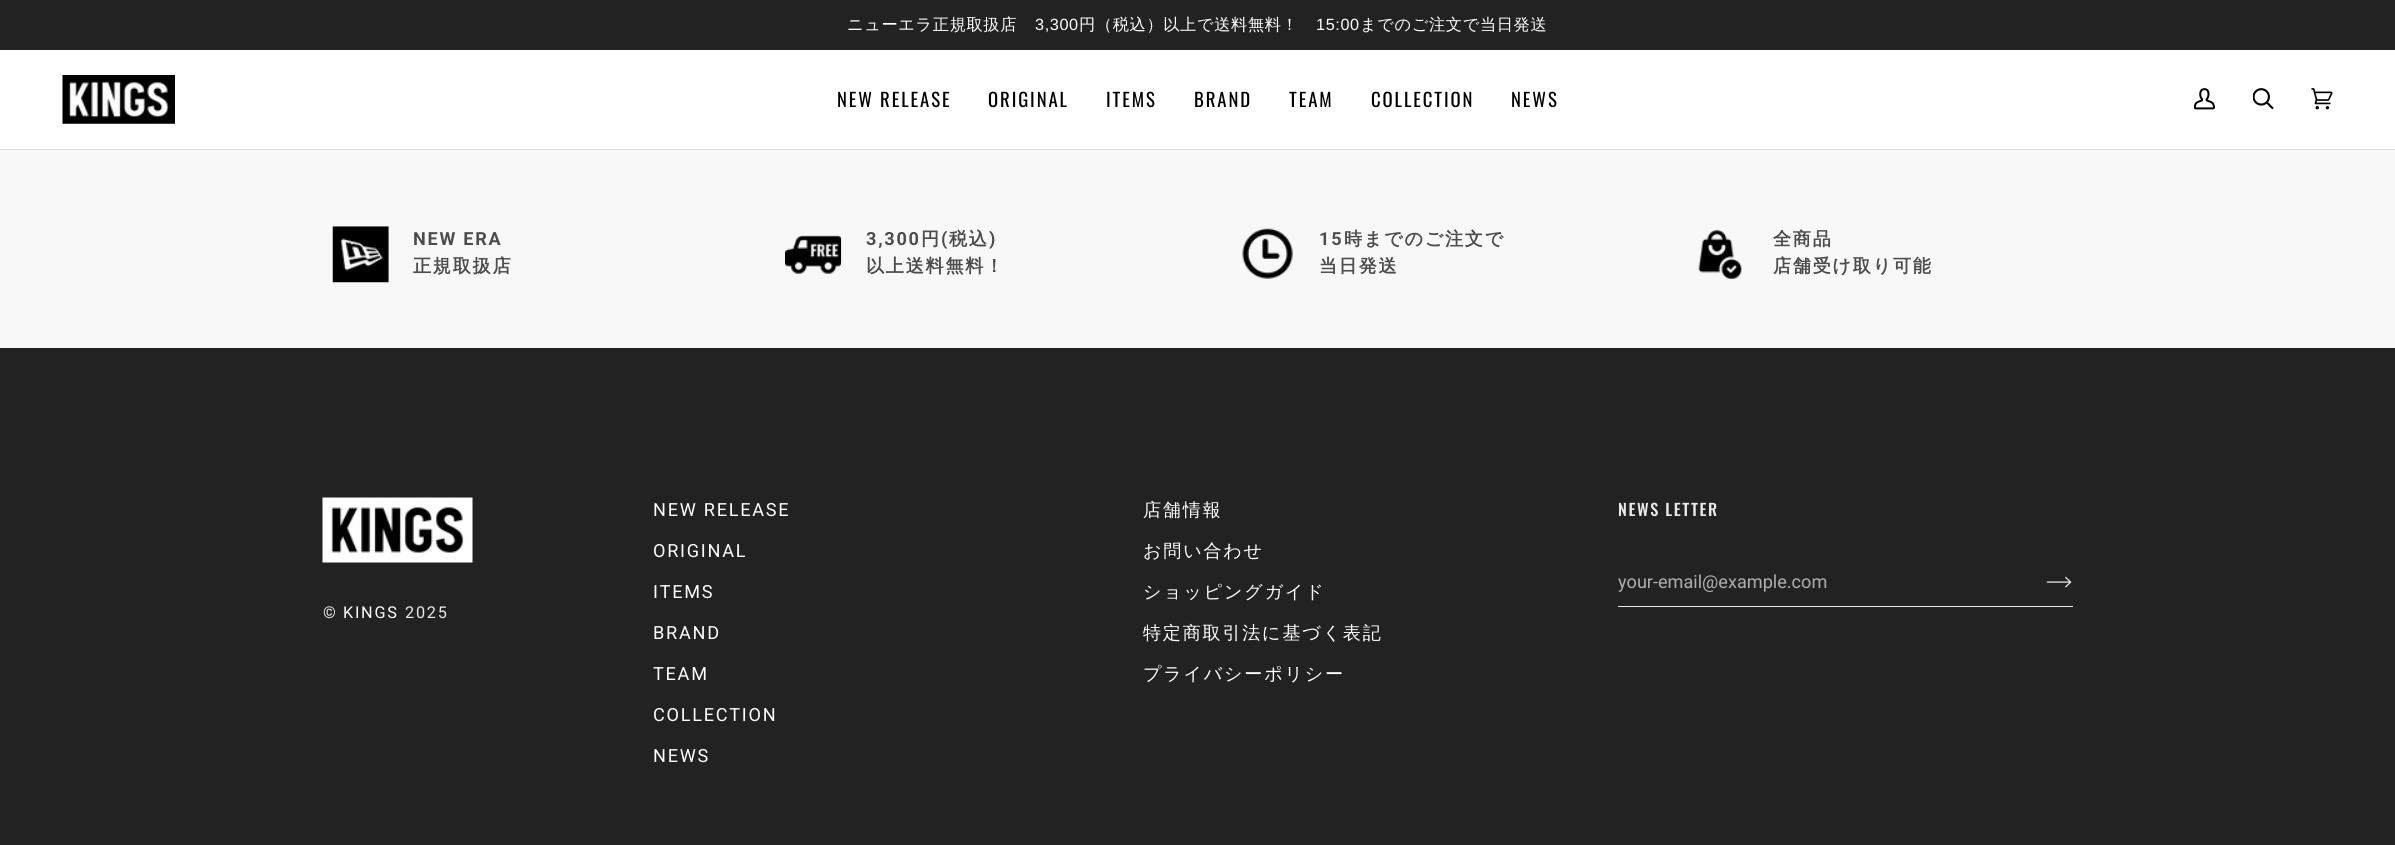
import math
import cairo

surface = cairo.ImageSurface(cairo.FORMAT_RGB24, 2395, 845)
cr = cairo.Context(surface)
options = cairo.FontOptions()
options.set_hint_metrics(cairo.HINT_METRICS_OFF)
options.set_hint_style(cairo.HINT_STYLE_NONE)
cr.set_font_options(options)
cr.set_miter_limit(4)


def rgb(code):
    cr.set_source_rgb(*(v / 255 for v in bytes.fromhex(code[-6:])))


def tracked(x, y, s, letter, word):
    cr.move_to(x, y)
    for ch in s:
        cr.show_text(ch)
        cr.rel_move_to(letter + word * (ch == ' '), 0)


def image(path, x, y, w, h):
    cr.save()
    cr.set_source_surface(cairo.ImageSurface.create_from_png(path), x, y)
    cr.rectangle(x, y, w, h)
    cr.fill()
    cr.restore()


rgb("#f8f8f8")
cr.paint()
for x, y, w, h, color in [
    (0, 0, 2395, 50, "#222222"),
    (0, 50, 2395, 99, "#ffffff"),
    (0, 149, 2395, 1, "#dddddd"),
]:
    rgb(color)
    cr.rectangle(x, y, w, h)
    cr.fill()
image("img/1.png", 62, 75, 113, 49)
image("img/2.png", 2194, 88, 21, 22)
image("img/3.png", 2253, 88, 21, 22)
image("img/4.png", 2311, 88, 22, 22)
image("img/5.png", 332, 226, 57, 57)
image("img/6.png", 785, 235, 57, 39)
image("img/7.png", 1242, 228, 51, 51)
image("img/8.png", 1698, 229, 44, 51)
rgb("#222222")
cr.rectangle(0, 348, 2395, 497)
cr.fill()
rgb("#e9e9e9")
cr.rectangle(1618, 606, 455, 1)
cr.fill()
image("img/9.png", 2046, 576, 26, 12)
image("img/10.png", 322, 497, 151, 66)
cr.select_font_face("WenQuanYi Zen Hei Medium")
cr.set_font_size(16.25)
rgb("#ffffff")
tracked(847, 30, "ニューエラ正規取扱店", 0.6, 0)
cr.select_font_face("Liberation Sans")
tracked(1035, 30, "3,300", 0.6, 0)
cr.select_font_face("WenQuanYi Zen Hei Medium")
tracked(1079, 30, "円（税込）以上で送料無料！", 0.6, 0)
cr.select_font_face("Liberation Sans")
tracked(1316, 30, "15:00", 0.6, 0)
cr.select_font_face("WenQuanYi Zen Hei Medium")
tracked(1360, 30, "までのご注文で当日発送", 0.6, 0)
cr.select_font_face("Oswald")
cr.set_font_size(18.75)
rgb("#000000")
for x, y, s in [
    (837, 107, "NEW RELEASE"),
    (988, 107, "ORIGINAL"),
    (1106, 107, "ITEMS"),
    (1194, 107, "BRAND"),
    (1289, 107, "TEAM"),
    (1371, 107, "COLLECTION"),
    (1511, 107, "NEWS"),
]:
    tracked(x, y, s, 1.9, 0)
cr.select_font_face("Roboto", cairo.FONT_SLANT_NORMAL, cairo.FONT_WEIGHT_BOLD)
cr.set_font_size(18.1)
rgb("#4d4d4d")
tracked(413, 245, "NEW ERA", 1.75, 0)
cr.select_font_face("WenQuanYi Zen Hei", cairo.FONT_SLANT_NORMAL, cairo.FONT_WEIGHT_BOLD)
tracked(413, 272, "正規取扱店", 1.75, 0)
cr.select_font_face("Roboto", cairo.FONT_SLANT_NORMAL, cairo.FONT_WEIGHT_BOLD)
tracked(866, 245, "3,300", 1.75, 0)
cr.select_font_face("WenQuanYi Zen Hei", cairo.FONT_SLANT_NORMAL, cairo.FONT_WEIGHT_BOLD)
tracked(921, 245, "円", 1.75, 0)
cr.select_font_face("Roboto", cairo.FONT_SLANT_NORMAL, cairo.FONT_WEIGHT_BOLD)
tracked(941, 245, "(", 1.75, 0)
cr.select_font_face("WenQuanYi Zen Hei", cairo.FONT_SLANT_NORMAL, cairo.FONT_WEIGHT_BOLD)
tracked(949, 245, "税込", 1.75, 0)
cr.select_font_face("Roboto", cairo.FONT_SLANT_NORMAL, cairo.FONT_WEIGHT_BOLD)
tracked(989, 245, ")", 1.75, 0)
cr.select_font_face("WenQuanYi Zen Hei", cairo.FONT_SLANT_NORMAL, cairo.FONT_WEIGHT_BOLD)
tracked(866, 272, "以上送料無料！", 1.75, 0)
cr.select_font_face("Roboto", cairo.FONT_SLANT_NORMAL, cairo.FONT_WEIGHT_BOLD)
tracked(1319, 245, "15", 1.75, 0)
cr.select_font_face("WenQuanYi Zen Hei", cairo.FONT_SLANT_NORMAL, cairo.FONT_WEIGHT_BOLD)
for x, y, s in [
    (1344, 245, "時までのご注文で"),
    (1319, 272, "当日発送"),
    (1773, 245, "全商品"),
    (1773, 272, "店舗受け取り可能"),
]:
    tracked(x, y, s, 1.75, 0)
cr.select_font_face("Roboto")
rgb("#ffffff")
for x, y, s in [
    (653, 516, "NEW RELEASE"),
    (653, 557, "ORIGINAL"),
    (653, 598, "ITEMS"),
    (653, 639, "BRAND"),
    (653, 680, "TEAM"),
    (653, 721, "COLLECTION"),
    (653, 762, "NEWS"),
]:
    tracked(x, y, s, 1.75, 0)
cr.select_font_face("WenQuanYi Zen Hei Medium")
for x, y, s in [
    (1143, 516, "店舗情報"),
    (1143, 557, "お問い合わせ"),
    (1143, 598, "ショッピングガイド"),
    (1143, 639, "特定商取引法に基づく表記"),
    (1143, 680, "プライバシーポリシー"),
]:
    tracked(x, y, s, 1.75, 0)
cr.select_font_face("Oswald Medium")
cr.set_font_size(16.25)
rgb("#e9e9e9")
tracked(1618, 516, "NEWS LETTER", 1.6, 0)
cr.select_font_face("Roboto")
cr.set_font_size(18.1)
rgb("#aeaeae")
cr.move_to(1618, 588)
cr.show_text("your-email@example.com")
cr.set_font_size(16.25)
rgb("#e9e9e9")
tracked(323, 618, "©", 1.75, 0)
rgb("#ffffff")
tracked(343, 618, "KINGS", 1.75, 0)
rgb("#e9e9e9")
tracked(405, 618, "2025", 1.75, 0)
surface.write_to_png("page.png")
